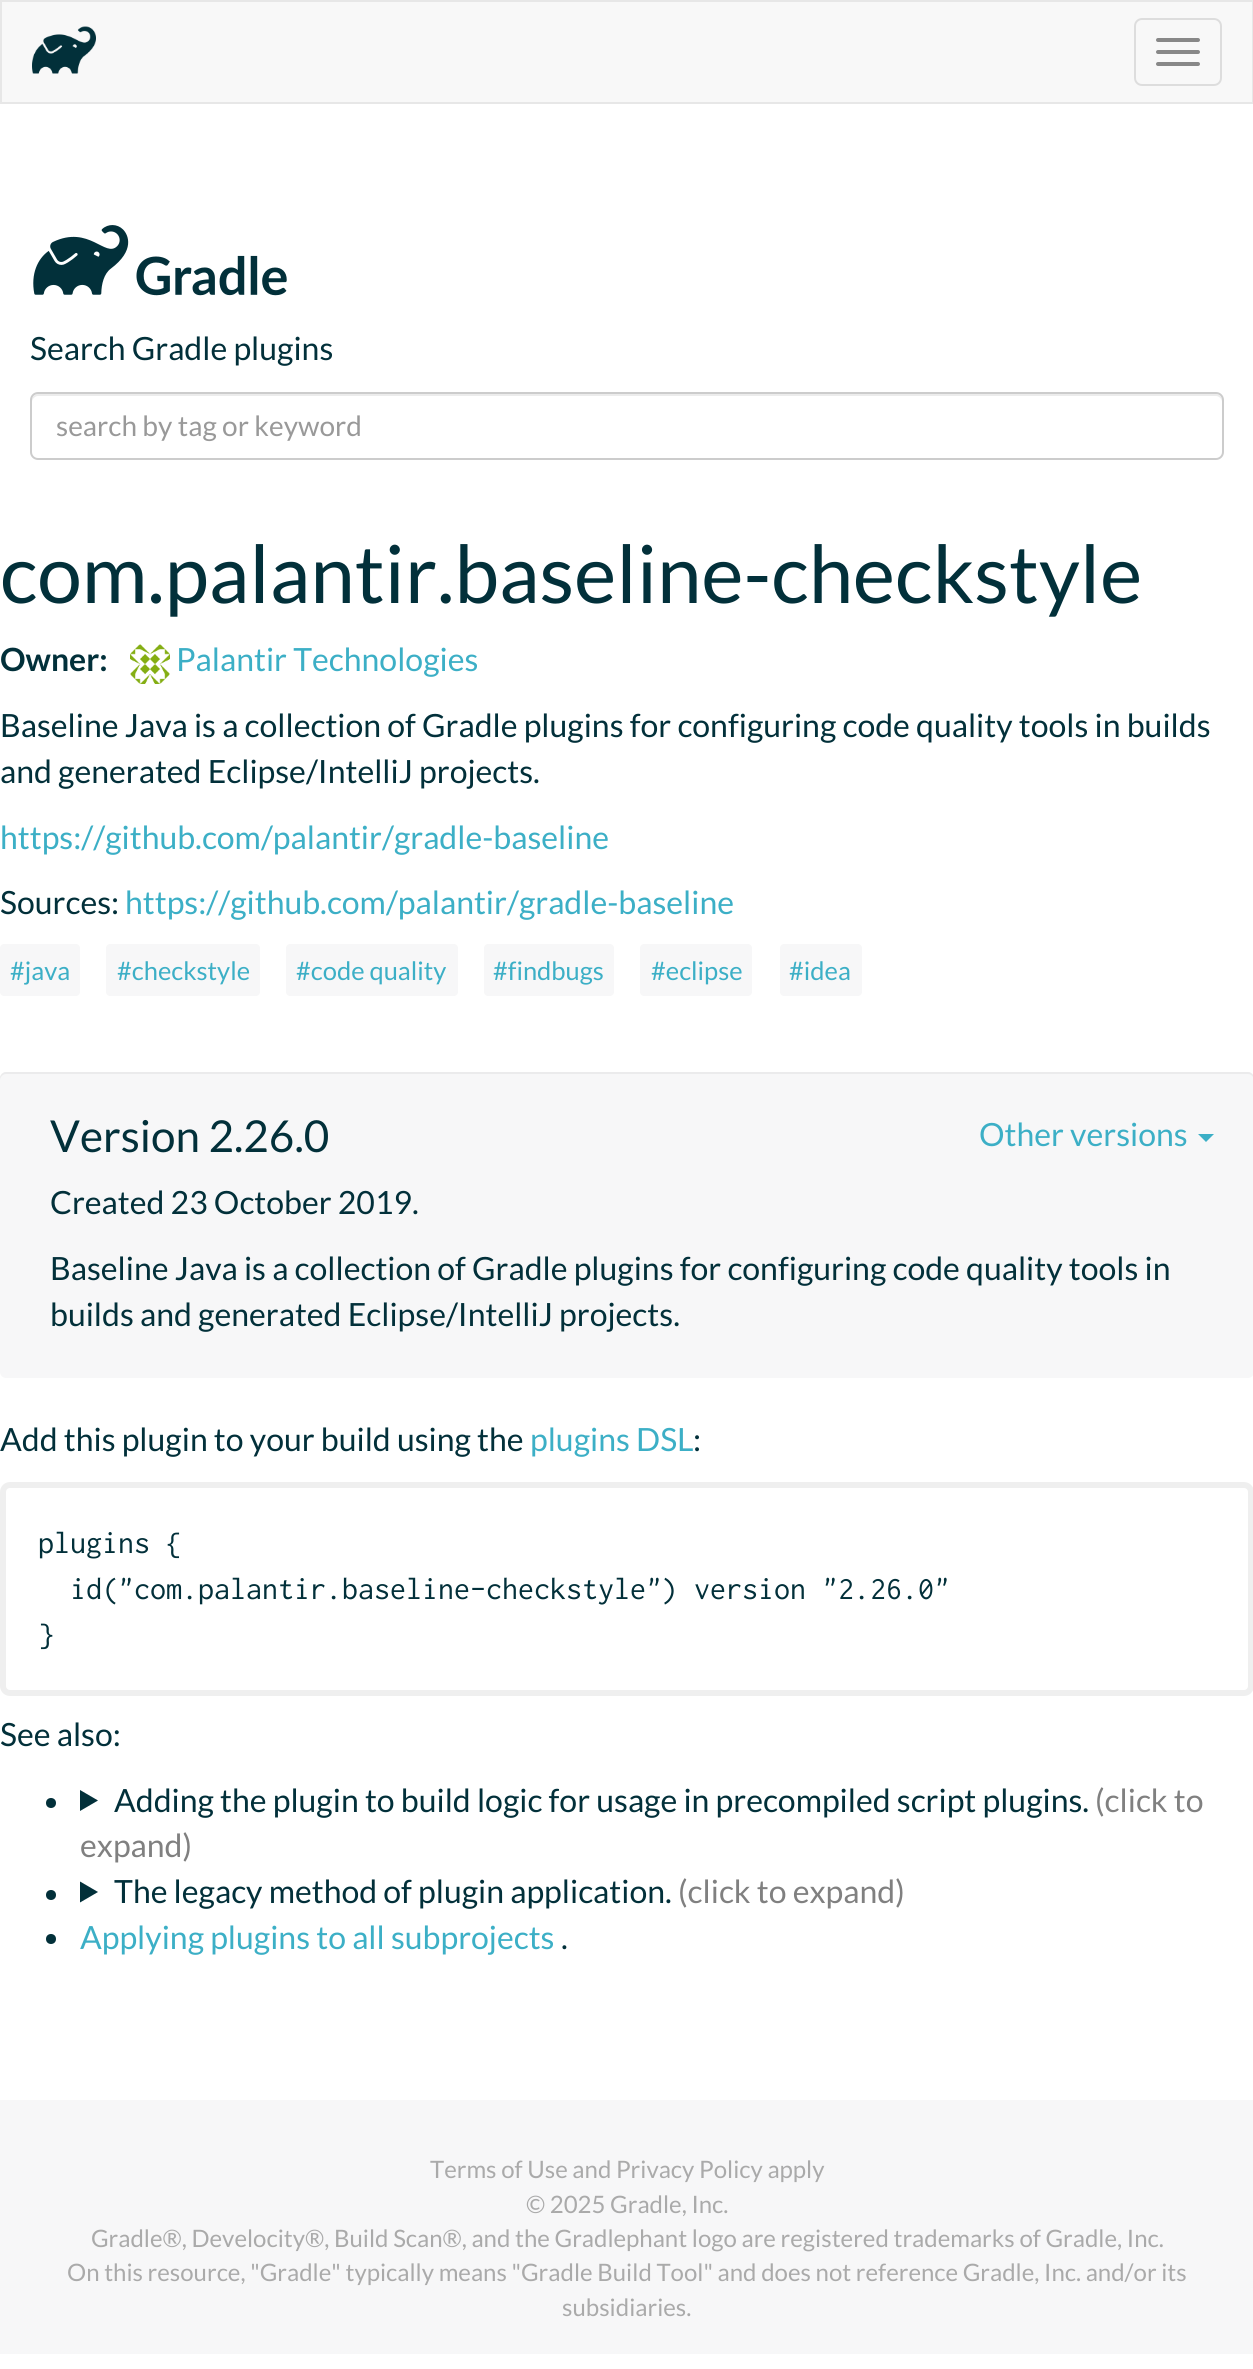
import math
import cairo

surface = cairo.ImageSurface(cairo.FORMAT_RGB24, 1253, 2369)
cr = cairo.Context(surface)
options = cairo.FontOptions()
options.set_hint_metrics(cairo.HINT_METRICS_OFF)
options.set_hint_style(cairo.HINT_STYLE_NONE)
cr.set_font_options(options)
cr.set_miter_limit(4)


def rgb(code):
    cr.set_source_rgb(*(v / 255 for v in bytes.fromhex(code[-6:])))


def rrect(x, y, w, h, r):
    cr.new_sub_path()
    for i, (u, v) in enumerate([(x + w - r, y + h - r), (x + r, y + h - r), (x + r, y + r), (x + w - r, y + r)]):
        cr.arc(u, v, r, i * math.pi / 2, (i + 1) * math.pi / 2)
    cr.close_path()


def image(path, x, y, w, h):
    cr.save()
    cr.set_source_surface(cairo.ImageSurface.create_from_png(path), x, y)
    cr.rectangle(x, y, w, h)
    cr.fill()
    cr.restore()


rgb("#ffffff")
cr.paint()
rgb("#f8f8f8")
cr.rectangle(1, 1, 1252, 102)
cr.fill_preserve()
rgb("#e7e7e7")
cr.stroke()
image("img/1.png", 32, 26, 64, 48)
rrect(1135, 19, 86, 66, 7)
rgb("#dddddd")
cr.stroke()
rgb("#888888")
rrect(1156, 38, 44, 4, 2)
cr.fill()
rrect(1156, 50, 44, 4, 2)
cr.fill()
rrect(1156, 62, 44, 4, 2)
cr.fill()
image("img/2.png", 33, 225, 254, 71)
rgb("#ececec")
cr.new_path()
cr.move_to(38, 396)
cr.line_to(1216, 396)
cr.curve_to(1219, 396, 1222, 399, 1222, 402)
cr.line_to(1222, 400)
cr.curve_to(1222, 397, 1219, 394, 1216, 394)
cr.line_to(38, 394)
cr.curve_to(35, 394, 32, 397, 32, 400)
cr.line_to(32, 402)
cr.curve_to(32, 399, 35, 396, 38, 396)
cr.close_path()
cr.fill()
rrect(31, 393, 1192, 66, 7)
rgb("#cccccc")
cr.stroke()
image("img/3.png", 130, 644, 40, 40)
rgb("#f7f7f8")
rrect(0, 944, 80, 52, 4)
cr.fill()
rrect(106, 944, 154, 52, 4)
cr.fill()
rrect(286, 944, 172, 52, 4)
cr.fill()
rrect(484, 944, 130, 52, 4)
cr.fill()
rrect(640, 944, 112, 52, 4)
cr.fill()
rrect(780, 944, 82, 52, 4)
cr.fill()
rrect(0, 1072, 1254, 306, 6)
cr.fill()
rgb("#ebebec")
cr.new_path()
cr.move_to(6, 1074)
cr.line_to(1248, 1074)
cr.curve_to(1251, 1074, 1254, 1077, 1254, 1080)
cr.line_to(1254, 1078)
cr.curve_to(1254, 1075, 1251, 1072, 1248, 1072)
cr.line_to(6, 1072)
cr.curve_to(3, 1072, 0, 1075, 0, 1078)
cr.line_to(0, 1080)
cr.curve_to(0, 1077, 3, 1074, 6, 1074)
cr.close_path()
cr.fill()
rgb("#3cafc6")
cr.new_path()
cr.move_to(1198, 1134)
cr.line_to(1214, 1134)
cr.line_to(1206, 1142)
cr.close_path()
cr.fill()
rrect(3, 1485, 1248, 208, 7)
rgb("#efefef")
cr.set_line_width(6)
cr.stroke()
rgb("#02303a")
cr.arc(51, 1803, 5, 0, 2 * math.pi)
cr.fill()
cr.new_path()
cr.move_to(80, 1790)
cr.line_to(98, 1800.5)
cr.line_to(80, 1811)
cr.close_path()
cr.fill()
cr.arc(51, 1895, 5, 0, 2 * math.pi)
cr.fill()
cr.new_path()
cr.move_to(80, 1881.5)
cr.line_to(98, 1892)
cr.line_to(80, 1902.5)
cr.close_path()
cr.fill()
cr.arc(51, 1939, 5, 0, 2 * math.pi)
cr.fill()
rgb("#f7f7f8")
cr.rectangle(0, 2100, 1253, 254)
cr.fill()
cr.select_font_face("Lato")
cr.set_font_size(32)
rgb("#02303a")
cr.move_to(30, 360)
cr.show_text("Search Gradle plugins")
cr.set_font_size(28)
rgb("#999999")
cr.move_to(56, 436)
cr.show_text("search by tag or keyword")
cr.set_font_size(80)
rgb("#02303a")
cr.move_to(0, 603)
cr.show_text("com.palantir.baseline-checkstyle")
cr.select_font_face("Lato", cairo.FONT_SLANT_NORMAL, cairo.FONT_WEIGHT_BOLD)
cr.set_font_size(32)
cr.move_to(0, 671)
cr.show_text("Owner:")
cr.select_font_face("Lato")
rgb("#3cafc6")
cr.move_to(176, 671)
cr.show_text("Palantir Technologies")
rgb("#02303a")
cr.move_to(0, 737)
cr.show_text("Baseline Java is a collection of Gradle plugins for configuring code quality tools in builds")
cr.move_to(0, 783)
cr.show_text("and generated Eclipse/IntelliJ projects.")
rgb("#3cafc6")
cr.move_to(0, 849)
cr.show_text("https://github.com/palantir/gradle-baseline")
rgb("#02303a")
cr.move_to(0, 914)
cr.show_text("Sources:")
rgb("#3cafc6")
cr.move_to(125, 914)
cr.show_text("https://github.com/palantir/gradle-baseline")
cr.set_font_size(25.5)
for x, y, s in [
    (10, 980, "#java"),
    (117, 980, "#checkstyle"),
    (296, 980, "#code quality"),
    (493, 980, "#findbugs"),
    (651, 980, "#eclipse"),
    (789, 980, "#idea"),
]:
    cr.move_to(x, y)
    cr.show_text(s)
cr.set_font_size(44)
rgb("#02303a")
cr.move_to(50, 1152)
cr.show_text("Version 2.26.0")
cr.set_font_size(32)
rgb("#3cafc6")
cr.move_to(979, 1146)
cr.show_text("Other versions")
rgb("#02303a")
for x, y, s in [
    (50, 1214, "Created 23 October 2019."),
    (50, 1280, "Baseline Java is a collection of Gradle plugins for configuring code quality tools in"),
    (50, 1326, "builds and generated Eclipse/IntelliJ projects."),
    (0, 1451, "Add this plugin to your build using the"),
]:
    cr.move_to(x, y)
    cr.show_text(s)
rgb("#3cafc6")
cr.move_to(530, 1451)
cr.show_text("plugins DSL")
rgb("#02303a")
cr.move_to(693, 1451)
cr.show_text(":")
cr.select_font_face("Inconsolata Medium")
for x, y, s in [
    (38, 1553, "plugins {"),
    (70, 1599, "id(\"com.palantir.baseline-checkstyle\") version \"2.26.0\""),
    (38, 1644, "}"),
]:
    cr.move_to(x, y)
    cr.show_text(s)
cr.select_font_face("Lato")
cr.move_to(0, 1746)
cr.show_text("See also:")
cr.move_to(114, 1812)
cr.show_text("Adding the plugin to build logic for usage in precompiled script plugins.")
rgb("#808080")
cr.move_to(1095, 1812)
cr.show_text("(click to")
cr.move_to(80, 1857)
cr.show_text("expand)")
rgb("#02303a")
cr.move_to(114, 1903)
cr.show_text("The legacy method of plugin application.")
rgb("#808080")
cr.move_to(678, 1903)
cr.show_text("(click to expand)")
rgb("#3cafc6")
cr.move_to(80, 1949)
cr.show_text("Applying plugins to all subprojects")
rgb("#02303a")
cr.move_to(561, 1949)
cr.show_text(".")
cr.set_font_size(24)
rgb("#aaaaaa")
for x, y, s in [
    (430, 2178, "Terms of Use and Privacy Policy apply"),
    (526, 2213, "© 2025 Gradle, Inc."),
    (91, 2247, "Gradle®, Develocity®, Build Scan®, and the Gradlephant logo are registered trademarks of Gradle, Inc."),
    (67, 2281, "On this resource, \"Gradle\" typically means \"Gradle Build Tool\" and does not reference Gradle, Inc. and/or its"),
    (562, 2316, "subsidiaries."),
]:
    cr.move_to(x, y)
    cr.show_text(s)
surface.write_to_png("page.png")
